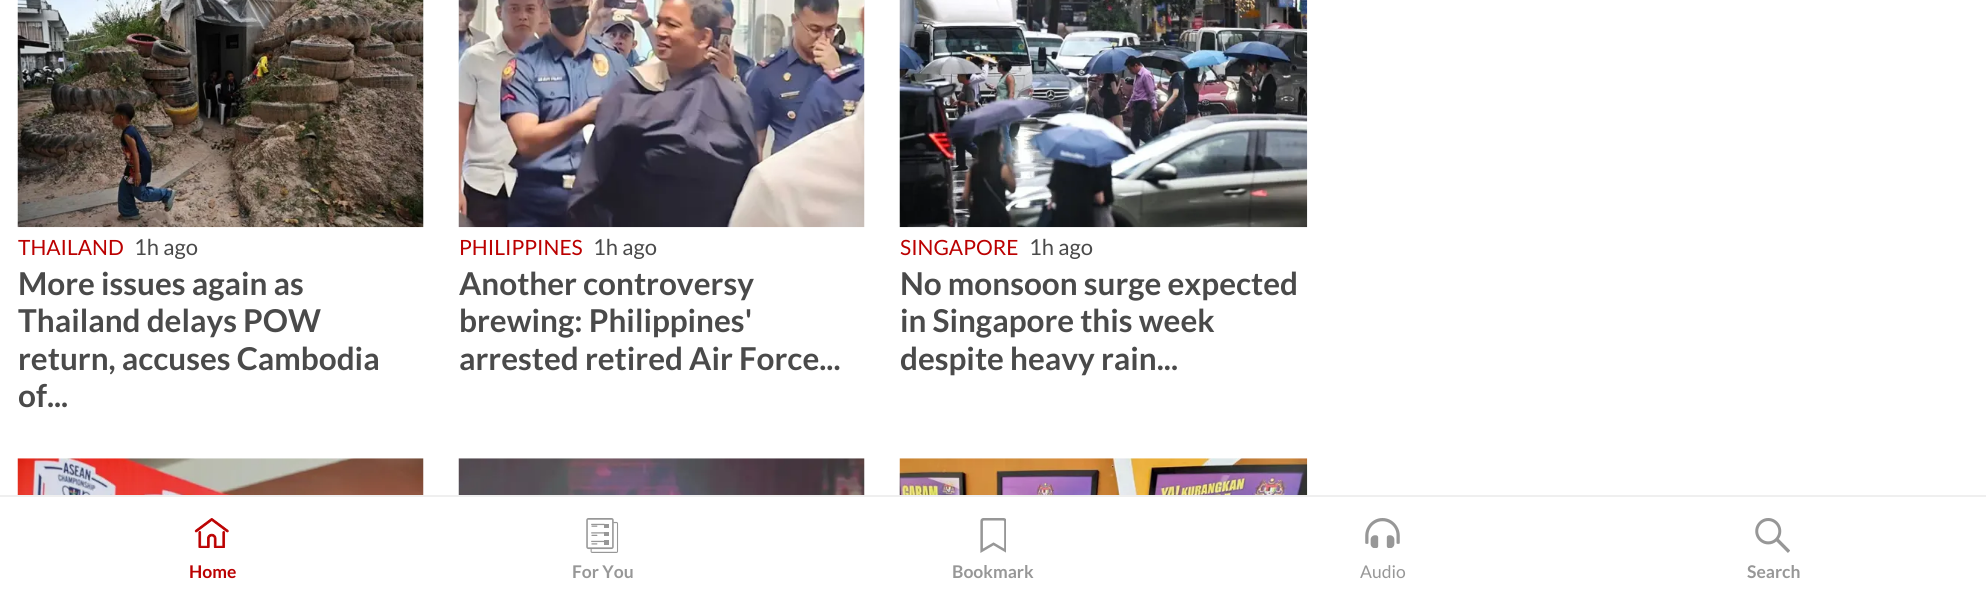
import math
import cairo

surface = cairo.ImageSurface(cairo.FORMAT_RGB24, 1986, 599)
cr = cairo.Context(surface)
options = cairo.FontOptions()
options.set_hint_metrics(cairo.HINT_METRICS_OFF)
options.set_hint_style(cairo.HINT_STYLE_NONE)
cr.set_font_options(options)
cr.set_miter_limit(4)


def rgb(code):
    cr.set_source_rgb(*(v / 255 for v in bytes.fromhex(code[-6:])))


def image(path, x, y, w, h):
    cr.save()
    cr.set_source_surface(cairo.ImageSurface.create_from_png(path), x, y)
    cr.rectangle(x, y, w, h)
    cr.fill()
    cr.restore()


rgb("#ffffff")
cr.paint()
image("img/1.png", 17, 0, 407, 228)
image("img/2.png", 458, 0, 407, 228)
image("img/3.png", 899, 0, 409, 228)
image("img/4.png", 17, 458, 407, 37)
image("img/5.png", 458, 458, 407, 37)
image("img/6.png", 899, 458, 409, 37)
rgb("#efefef")
cr.rectangle(0, 495, 1986, 2)
cr.fill()
image("img/7.png", 194, 518, 35, 30)
image("img/8.png", 586, 518, 33, 35)
image("img/9.png", 980, 518, 26, 35)
image("img/10.png", 1365, 518, 35, 30)
image("img/11.png", 1755, 518, 35, 35)
cr.select_font_face("Lato")
cr.set_font_size(21)
rgb("#bb0000")
cr.move_to(18, 255)
cr.show_text("THAILAND")
cr.set_font_size(22)
rgb("#4a4a4a")
cr.move_to(134, 255)
cr.show_text("1h ago")
cr.select_font_face("Lato", cairo.FONT_SLANT_NORMAL, cairo.FONT_WEIGHT_BOLD)
cr.set_font_size(31.5)
cr.move_to(18, 295)
cr.show_text("More issues again as")
cr.save()
cr.rectangle(18, 0, 1289, 459)
cr.clip()
cr.move_to(18, 332)
cr.show_text("Thailand delays POW")
cr.restore()
cr.move_to(18, 370)
cr.show_text("return, accuses Cambodia")
cr.move_to(18, 407)
cr.show_text("of...")
cr.select_font_face("Lato")
cr.set_font_size(21)
rgb("#bb0000")
cr.move_to(459, 255)
cr.show_text("PHILIPPINES")
cr.set_font_size(22)
rgb("#4a4a4a")
cr.move_to(593, 255)
cr.show_text("1h ago")
cr.select_font_face("Lato", cairo.FONT_SLANT_NORMAL, cairo.FONT_WEIGHT_BOLD)
cr.set_font_size(31.5)
for x, y, s in [
    (459, 295, "Another controversy"),
    (459, 332, "brewing: Philippines'"),
    (459, 370, "arrested retired Air Force..."),
]:
    cr.move_to(x, y)
    cr.show_text(s)
cr.select_font_face("Lato")
cr.set_font_size(21)
rgb("#bb0000")
cr.move_to(900, 255)
cr.show_text("SINGAPORE")
cr.set_font_size(22)
rgb("#4a4a4a")
cr.move_to(1029, 255)
cr.show_text("1h ago")
cr.select_font_face("Lato", cairo.FONT_SLANT_NORMAL, cairo.FONT_WEIGHT_BOLD)
cr.set_font_size(31.5)
for x, y, s in [
    (900, 295, "No monsoon surge expected"),
    (900, 332, "in Singapore this week"),
    (900, 370, "despite heavy rain..."),
]:
    cr.move_to(x, y)
    cr.show_text(s)
cr.set_font_size(17.5)
rgb("#bb0000")
cr.move_to(189, 578)
cr.show_text("Home")
rgb("#979797")
cr.move_to(572, 578)
cr.show_text("For You")
cr.move_to(952, 578)
cr.show_text("Bookmark")
cr.select_font_face("Lato")
cr.move_to(1360, 578)
cr.show_text("Audio")
cr.select_font_face("Lato", cairo.FONT_SLANT_NORMAL, cairo.FONT_WEIGHT_BOLD)
cr.move_to(1747, 578)
cr.show_text("Search")
surface.write_to_png("page.png")
